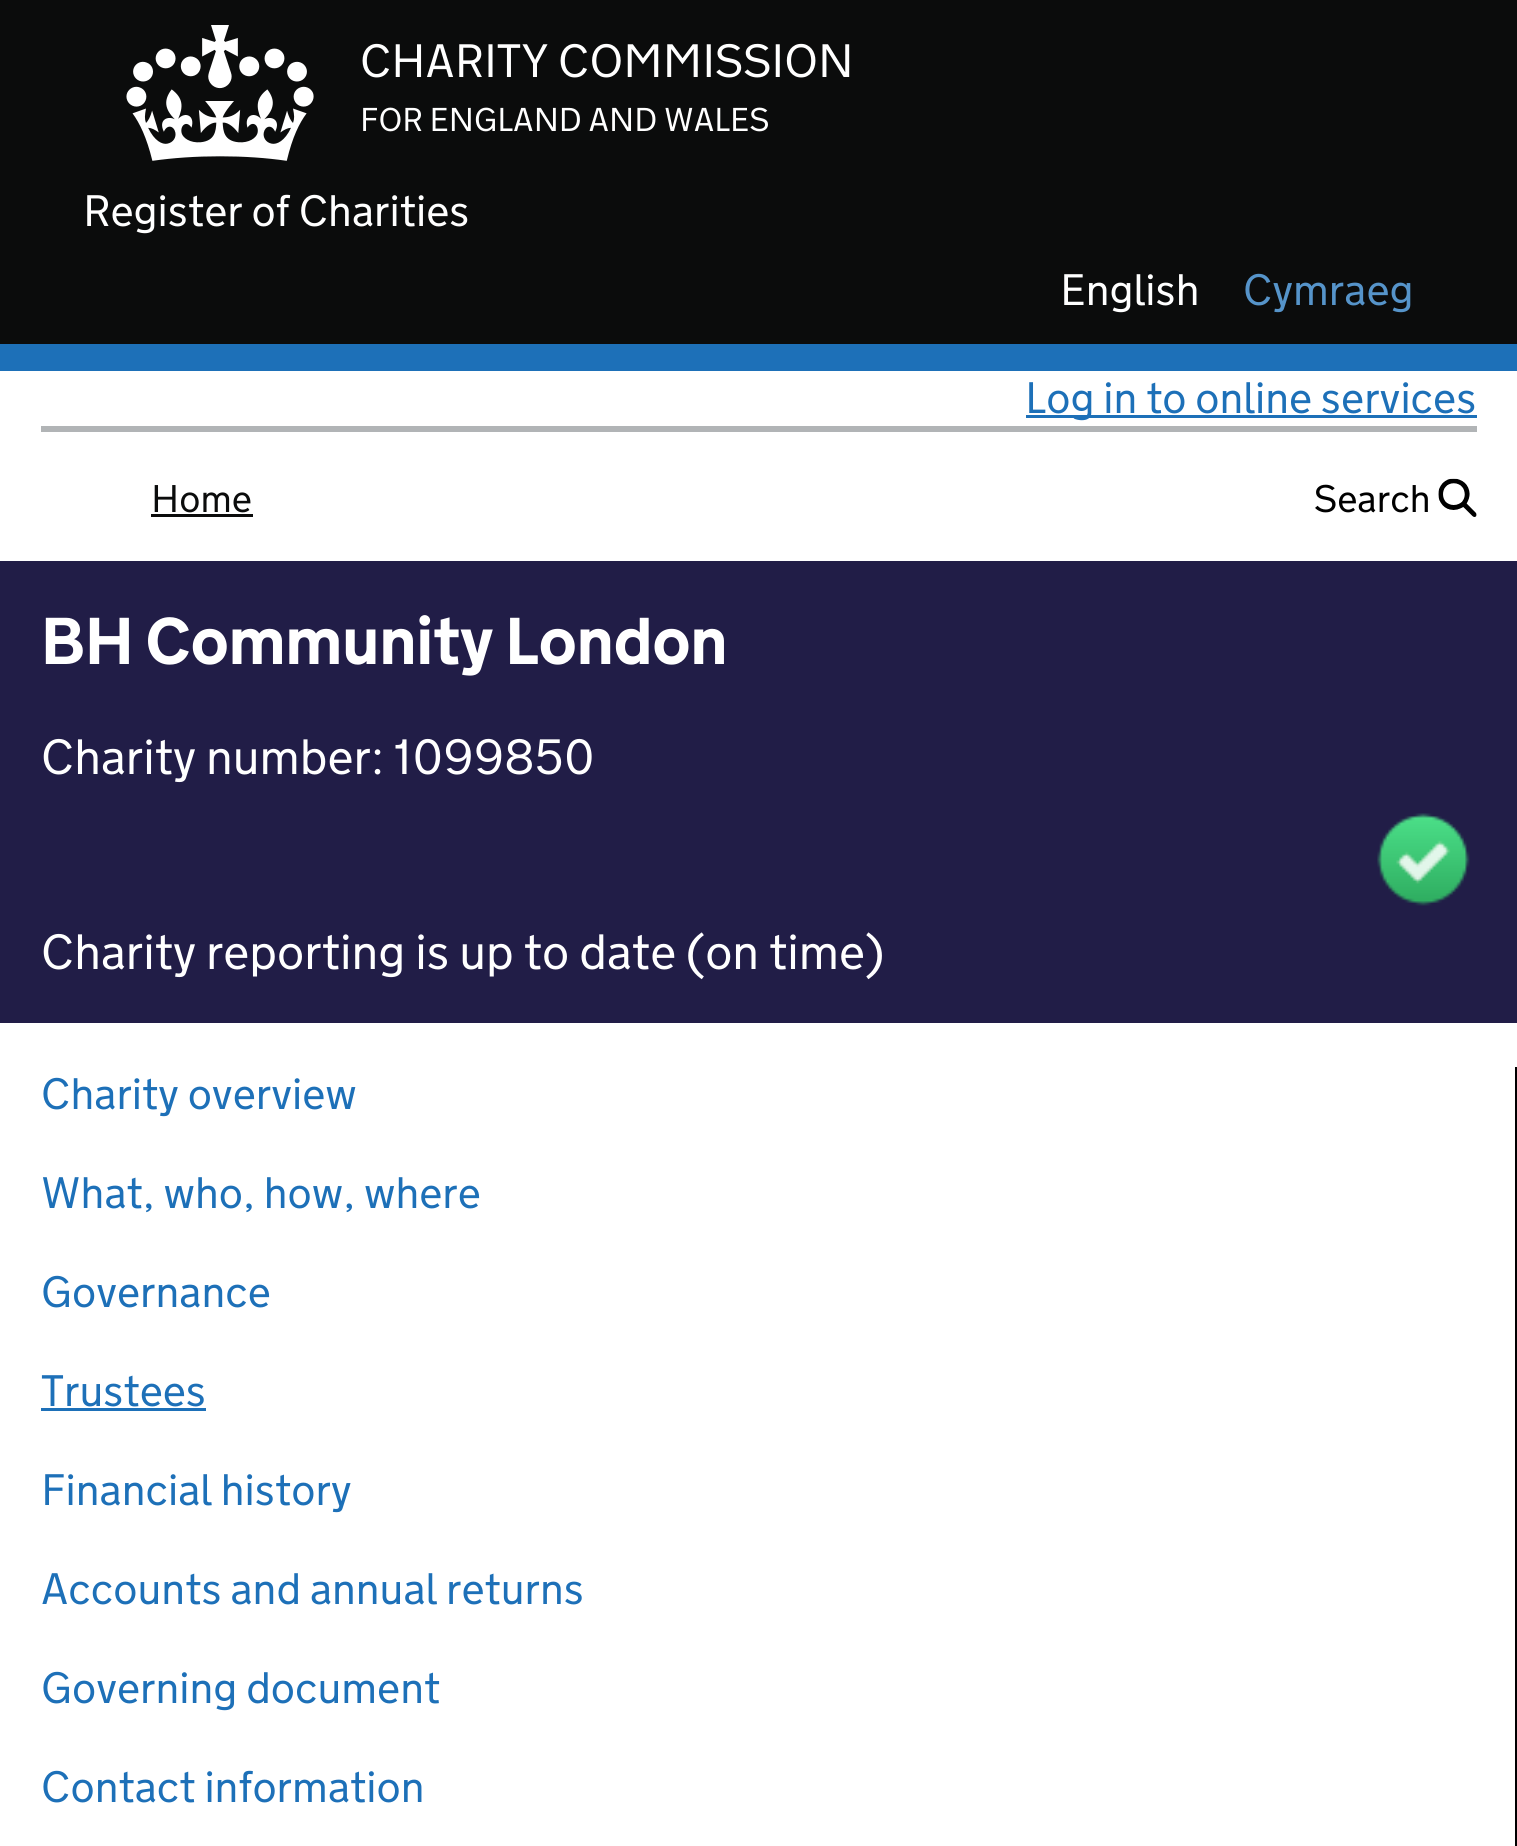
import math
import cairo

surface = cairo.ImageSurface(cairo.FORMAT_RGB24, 1517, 1846)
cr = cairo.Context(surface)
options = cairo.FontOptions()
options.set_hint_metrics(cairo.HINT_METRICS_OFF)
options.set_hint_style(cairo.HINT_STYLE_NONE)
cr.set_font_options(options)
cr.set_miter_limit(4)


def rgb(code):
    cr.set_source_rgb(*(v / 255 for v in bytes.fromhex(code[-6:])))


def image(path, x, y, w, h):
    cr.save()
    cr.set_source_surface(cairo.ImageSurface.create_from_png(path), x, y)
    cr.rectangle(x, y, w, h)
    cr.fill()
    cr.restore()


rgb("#ffffff")
cr.paint()
rgb("#0b0c0c")
cr.rectangle(0, 0, 1517, 344)
cr.fill()
rgb("#1d70b8")
cr.rectangle(0, 344, 1517, 27)
cr.fill()
image("img/1.png", 126, 25, 188, 136)
for x, y, w, h, color in [
    (41, 426, 1436, 6, "#b1b4b6"),
    (1026, 415, 451, 3, "#1d70b8"),
    (151, 514, 102, 3, "#0b0c0c"),
]:
    rgb(color)
    cr.rectangle(x, y, w, h)
    cr.fill()
image("img/2.png", 1438, 478, 39, 39)
rgb("#211d47")
cr.rectangle(0, 561, 1517, 462)
cr.fill()
image("img/3.png", 1377, 813, 93, 93)
rgb("#000000")
cr.rectangle(1515, 1067, 2, 779)
cr.fill()
rgb("#1d70b8")
cr.rectangle(41, 1408, 165, 3)
cr.fill()
cr.select_font_face("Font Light")
cr.set_font_size(46.75)
rgb("#ffffff")
cr.move_to(360, 77)
cr.show_text("CHARITY COMMISSION")
cr.set_font_size(33)
cr.move_to(360, 131)
cr.show_text("FOR ENGLAND AND WALES")
cr.set_font_size(44)
cr.move_to(83, 226)
cr.show_text("Register of Charities")
cr.move_to(1060, 305)
cr.show_text("English")
rgb("#5694ca")
cr.move_to(1243, 305)
cr.show_text("Cymraeg")
rgb("#1d70b8")
cr.move_to(1025, 413)
cr.show_text("Log in to online services")
cr.set_font_size(38.5)
rgb("#0b0c0c")
cr.move_to(151, 512)
cr.show_text("Home")
rgb("#000000")
cr.move_to(1314, 512)
cr.show_text("Search")
cr.select_font_face("Font", cairo.FONT_SLANT_NORMAL, cairo.FONT_WEIGHT_BOLD)
cr.set_font_size(66)
rgb("#ffffff")
cr.move_to(41, 664)
cr.show_text("BH Community London")
cr.select_font_face("Font Light")
cr.set_font_size(49.5)
cr.move_to(41, 774)
cr.show_text("Charity number: 1099850")
cr.move_to(41, 969)
cr.show_text("Charity reporting is up to date (on time)")
cr.set_font_size(44)
rgb("#1d70b8")
for x, y, s in [
    (41, 1109, "Charity overview"),
    (41, 1208, "What, who, how, where"),
    (41, 1307, "Governance"),
    (41, 1406, "Trustees"),
    (41, 1505, "Financial history"),
    (41, 1604, "Accounts and annual returns"),
    (41, 1703, "Governing document"),
    (41, 1802, "Contact information"),
]:
    cr.move_to(x, y)
    cr.show_text(s)
surface.write_to_png("page.png")
